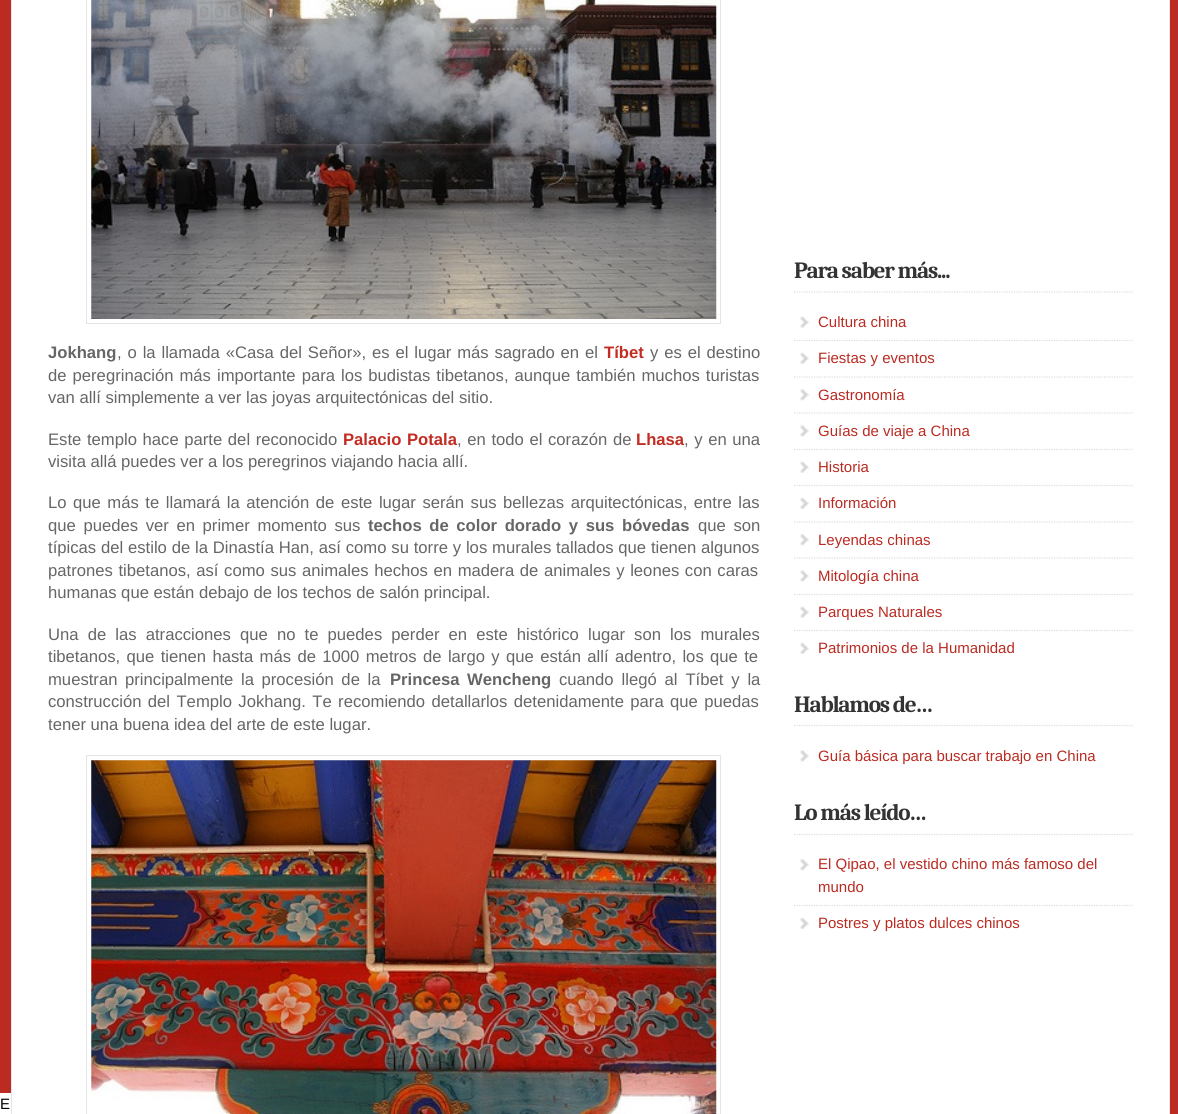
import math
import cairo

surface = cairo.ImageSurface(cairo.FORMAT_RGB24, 1178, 1114)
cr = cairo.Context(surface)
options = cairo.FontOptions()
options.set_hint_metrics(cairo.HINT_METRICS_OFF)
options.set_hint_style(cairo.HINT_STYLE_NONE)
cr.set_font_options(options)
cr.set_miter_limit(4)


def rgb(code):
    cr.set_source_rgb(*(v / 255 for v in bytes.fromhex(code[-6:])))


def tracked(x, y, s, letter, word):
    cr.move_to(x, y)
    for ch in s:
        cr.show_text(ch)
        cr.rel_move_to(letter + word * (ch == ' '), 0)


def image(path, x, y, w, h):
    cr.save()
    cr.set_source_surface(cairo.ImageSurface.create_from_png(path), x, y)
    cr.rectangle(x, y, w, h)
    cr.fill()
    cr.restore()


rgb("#ba2b22")
cr.paint()
rgb("#ffffff")
cr.rectangle(11.5, -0.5, 1158, 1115)
cr.fill_preserve()
rgb("#e5e5e5")
cr.set_line_width(1)
cr.stroke()
cr.rectangle(86.5, -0.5, 634, 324)
cr.stroke()
image("img/1.png", 91, 0, 626, 319)
cr.rectangle(86.5, 755.5, 634, 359)
cr.stroke()
image("img/2.png", 91, 760, 626, 354)
cr.new_path()
cr.move_to(794, 292)
cr.line_to(1132.5, 292)
rgb("#dddddd")
cr.set_line_width(1.2)
cr.set_dash([1.25, 1.25])
cr.stroke()
image("img/3.png", 800, 316, 9, 12)
cr.new_path()
cr.move_to(794, 340.5)
cr.line_to(1132.5, 340.5)
cr.stroke()
image("img/4.png", 800, 352, 9, 12)
cr.new_path()
cr.move_to(794, 377)
cr.line_to(1132.5, 377)
cr.stroke()
image("img/5.png", 800, 389, 9, 12)
cr.new_path()
cr.move_to(794, 413)
cr.line_to(1132.5, 413)
cr.stroke()
image("img/6.png", 800, 425, 9, 12)
cr.new_path()
cr.move_to(794, 449.5)
cr.line_to(1132.5, 449.5)
cr.stroke()
image("img/7.png", 800, 461, 9, 12)
cr.new_path()
cr.move_to(794, 485.5)
cr.line_to(1132.5, 485.5)
cr.stroke()
image("img/4.png", 800, 497, 9, 12)
cr.new_path()
cr.move_to(794, 522)
cr.line_to(1132.5, 522)
cr.stroke()
image("img/5.png", 800, 534, 9, 12)
cr.new_path()
cr.move_to(794, 558)
cr.line_to(1132.5, 558)
cr.stroke()
image("img/6.png", 800, 570, 9, 12)
cr.new_path()
cr.move_to(794, 594.5)
cr.line_to(1132.5, 594.5)
cr.stroke()
image("img/7.png", 800, 606, 9, 12)
cr.new_path()
cr.move_to(794, 630.5)
cr.line_to(1132.5, 630.5)
cr.stroke()
image("img/4.png", 800, 642, 9, 12)
cr.new_path()
cr.move_to(794, 725.5)
cr.line_to(1132.5, 725.5)
cr.stroke()
image("img/6.png", 800, 750, 9, 12)
cr.new_path()
cr.move_to(794, 834.5)
cr.line_to(1132.5, 834.5)
cr.stroke()
image("img/5.png", 800, 859, 9, 12)
cr.new_path()
cr.move_to(794, 905.5)
cr.line_to(1132.5, 905.5)
cr.stroke()
image("img/4.png", 800, 917, 9, 12)
rgb("#ffffff")
cr.rectangle(0, 1093, 11, 21)
cr.fill()
cr.select_font_face("Liberation Sans", cairo.FONT_SLANT_NORMAL, cairo.FONT_WEIGHT_BOLD)
cr.set_font_size(16.65)
rgb("#666666")
cr.move_to(48, 358)
cr.show_text("Jokhang")
cr.select_font_face("Liberation Sans")
tracked(117, 358, ", o la llamada «Casa del Señor», es el lugar más sagrado en el", 0, 1.25)
cr.select_font_face("Liberation Sans", cairo.FONT_SLANT_NORMAL, cairo.FONT_WEIGHT_BOLD)
rgb("#c22d23")
cr.move_to(604, 358)
cr.show_text("Tíbet")
cr.select_font_face("Liberation Sans")
rgb("#666666")
tracked(650, 358, "y es el destino", 0, 1.25)
tracked(48, 381, "de peregrinación más importante para los budistas tibetanos, aunque también muchos turistas", 0, 1.4)
cr.move_to(48, 403)
cr.show_text("van allí simplemente a ver las joyas arquitectónicas del sitio.")
tracked(48, 445, "Este templo hace parte del reconocido", 0, 1)
cr.select_font_face("Liberation Sans", cairo.FONT_SLANT_NORMAL, cairo.FONT_WEIGHT_BOLD)
rgb("#c22d23")
tracked(343, 445, "Palacio Potala", 0, 1)
cr.select_font_face("Liberation Sans")
rgb("#666666")
tracked(457, 445, ", en todo el corazón de", 0, 1)
cr.select_font_face("Liberation Sans", cairo.FONT_SLANT_NORMAL, cairo.FONT_WEIGHT_BOLD)
rgb("#c22d23")
cr.move_to(636, 445)
cr.show_text("Lhasa")
cr.select_font_face("Liberation Sans")
rgb("#666666")
tracked(684, 445, ", y en una", 0, 1)
cr.move_to(48, 467)
cr.show_text("visita allá puedes ver a los peregrinos viajando hacia allí.")
tracked(48, 508, "Lo que más te llamará la atención de este lugar serán sus bellezas arquitectónicas, entre las", 0, 1.9)
tracked(48, 531, "que puedes ver en primer momento sus", 0, 3)
cr.select_font_face("Liberation Sans", cairo.FONT_SLANT_NORMAL, cairo.FONT_WEIGHT_BOLD)
tracked(368, 531, "techos de color dorado y sus bóvedas", 0, 3)
cr.select_font_face("Liberation Sans")
tracked(698, 531, "que son", 0, 3)
tracked(48, 553, "típicas del estilo de la Dinastía Han, así como su torre y los murales tallados que tienen algunos", 0, 0.2)
tracked(48, 576, "patrones tibetanos, así como sus animales hechos en madera de animales y leones con caras", 0, 1)
cr.move_to(48, 598)
cr.show_text("humanas que están debajo de los techos de salón principal.")
tracked(48, 640, "Una de las atracciones que no te puedes perder en este histórico lugar son los murales", 0, 4.5)
tracked(48, 662, "tibetanos, que tienen hasta más de 1000 metros de largo y que están allí adentro, los que te", 0, 1.75)
tracked(48, 685, "muestran principalmente la procesión de la", 0, 3)
cr.select_font_face("Liberation Sans", cairo.FONT_SLANT_NORMAL, cairo.FONT_WEIGHT_BOLD)
tracked(390, 685, "Princesa Wencheng", 0, 3)
cr.select_font_face("Liberation Sans")
tracked(559, 685, "cuando llegó al Tíbet y la", 0, 3.25)
tracked(48, 707, "construcción del Templo Jokhang. Te recomiendo detallarlos detenidamente para que puedas", 0, 1.75)
cr.move_to(48, 730)
cr.show_text("tener una buena idea del arte de este lugar.")
cr.select_font_face("Caladea", cairo.FONT_SLANT_NORMAL, cairo.FONT_WEIGHT_BOLD)
cr.set_font_size(23.25)
rgb("#333333")
tracked(794, 278, "Para saber más...", -1.25, 0)
cr.select_font_face("Liberation Sans")
cr.set_font_size(15)
rgb("#ba2b22")
for x, y, s in [
    (818, 327, "Cultura china"),
    (818, 363, "Fiestas y eventos"),
    (818, 400, "Gastronomía"),
    (818, 436, "Guías de viaje a China"),
    (818, 472, "Historia"),
    (818, 508, "Información"),
    (818, 545, "Leyendas chinas"),
    (818, 581, "Mitología china"),
    (818, 617, "Parques Naturales"),
    (818, 653, "Patrimonios de la Humanidad"),
]:
    cr.move_to(x, y)
    cr.show_text(s)
cr.select_font_face("Caladea", cairo.FONT_SLANT_NORMAL, cairo.FONT_WEIGHT_BOLD)
cr.set_font_size(23.25)
rgb("#333333")
tracked(794, 712, "Hablamos de…", -1.25, 0)
cr.select_font_face("Liberation Sans")
cr.set_font_size(15)
rgb("#ba2b22")
cr.move_to(818, 761)
cr.show_text("Guía básica para buscar trabajo en China")
cr.select_font_face("Caladea", cairo.FONT_SLANT_NORMAL, cairo.FONT_WEIGHT_BOLD)
cr.set_font_size(23.25)
rgb("#333333")
tracked(794, 820, "Lo más leído…", -1.25, 0)
cr.select_font_face("Liberation Sans")
cr.set_font_size(15)
rgb("#ba2b22")
for x, y, s in [
    (818, 869, "El Qipao, el vestido chino más famoso del"),
    (818, 892, "mundo"),
    (818, 928, "Postres y platos dulces chinos"),
]:
    cr.move_to(x, y)
    cr.show_text(s)
rgb("#000000")
cr.move_to(0, 1109)
cr.show_text("E")
surface.write_to_png("page.png")
